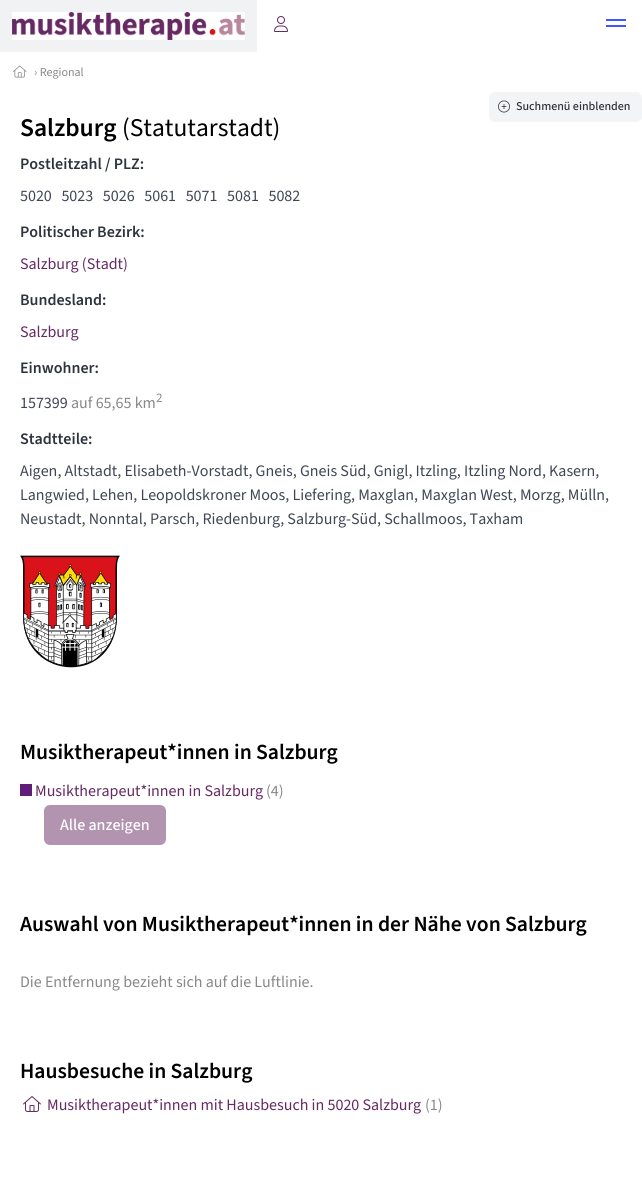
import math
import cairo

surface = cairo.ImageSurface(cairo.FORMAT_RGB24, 642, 1194)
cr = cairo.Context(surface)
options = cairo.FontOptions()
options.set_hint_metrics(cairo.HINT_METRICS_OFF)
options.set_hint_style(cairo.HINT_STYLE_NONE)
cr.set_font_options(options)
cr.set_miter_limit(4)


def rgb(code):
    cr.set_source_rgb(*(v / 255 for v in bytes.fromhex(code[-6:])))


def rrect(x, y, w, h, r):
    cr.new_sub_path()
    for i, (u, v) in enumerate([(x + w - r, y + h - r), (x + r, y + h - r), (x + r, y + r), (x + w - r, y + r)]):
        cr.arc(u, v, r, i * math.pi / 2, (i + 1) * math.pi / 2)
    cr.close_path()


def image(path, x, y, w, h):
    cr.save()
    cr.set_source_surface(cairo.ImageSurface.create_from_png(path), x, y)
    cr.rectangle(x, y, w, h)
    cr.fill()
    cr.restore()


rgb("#ffffff")
cr.paint()
rgb("#f0f2f4")
cr.rectangle(0, 0, 257, 52)
cr.fill()
image("img/1.png", 12, 12, 233, 28)
image("img/2.png", 274, 16, 14, 16)
rgb("#4258ff")
cr.rectangle(606, 19, 20, 2)
cr.fill()
cr.rectangle(606, 25, 20, 2)
cr.fill()
image("img/3.png", 13, 65, 14, 13)
rgb("#f3f4f6")
rrect(489, 92, 153, 30, 6)
cr.fill()
image("img/4.png", 498, 100, 12, 13)
image("img/5.png", 20, 555, 100, 113)
rgb("#5f1e78")
cr.rectangle(20, 784, 12, 12)
cr.fill()
rgb("#b294b1")
rrect(44, 805, 122, 40, 6)
cr.fill()
image("img/6.png", 23, 1096, 18, 16)
cr.select_font_face("Source Sans 3")
cr.set_font_size(12)
rgb("#888888")
cr.move_to(34, 76)
cr.show_text("› Regional")
cr.select_font_face("Source Sans 3 Medium")
rgb("#2e333d")
cr.move_to(516, 110)
cr.show_text("Suchmenü einblenden")
cr.select_font_face("Source Sans 3 SemiBold")
cr.set_font_size(25.5)
rgb("#000000")
cr.move_to(20, 136)
cr.show_text("Salzburg")
cr.select_font_face("Source Sans 3")
cr.move_to(122, 136)
cr.show_text("(Statutarstadt)")
cr.select_font_face("Source Sans 3 SemiBold")
cr.set_font_size(16)
rgb("#2e333d")
cr.move_to(20, 169)
cr.show_text("Postleitzahl / PLZ:")
cr.select_font_face("Source Sans 3")
rgb("#404654")
cr.move_to(20, 201)
cr.show_text("5020   5023   5026   5061   5071   5081   5082")
cr.select_font_face("Source Sans 3 SemiBold")
rgb("#2e333d")
cr.move_to(20, 237)
cr.show_text("Politischer Bezirk:")
cr.select_font_face("Source Sans 3")
rgb("#662963")
cr.move_to(20, 269)
cr.show_text("Salzburg (Stadt)")
cr.select_font_face("Source Sans 3 SemiBold")
rgb("#2e333d")
cr.move_to(20, 305)
cr.show_text("Bundesland:")
cr.select_font_face("Source Sans 3")
rgb("#662963")
cr.move_to(20, 337)
cr.show_text("Salzburg")
cr.select_font_face("Source Sans 3 SemiBold")
rgb("#2e333d")
cr.move_to(20, 373)
cr.show_text("Einwohner:")
cr.select_font_face("Source Sans 3")
rgb("#404654")
cr.move_to(20, 408)
cr.show_text("157399")
rgb("#888888")
cr.move_to(71, 408)
cr.show_text("auf 65,65 km")
cr.set_font_size(13)
cr.move_to(156, 402)
cr.show_text("2")
cr.select_font_face("Source Sans 3 SemiBold")
cr.set_font_size(16)
rgb("#2e333d")
cr.move_to(20, 444)
cr.show_text("Stadtteile:")
cr.select_font_face("Source Sans 3")
rgb("#404654")
for x, y, s in [
    (20, 476, "Aigen, Altstadt, Elisabeth-Vorstadt, Gneis, Gneis Süd, Gnigl, Itzling, Itzling Nord, Kasern,"),
    (20, 500, "Langwied, Lehen, Leopoldskroner Moos, Liefering, Maxglan, Maxglan West, Morzg, Mülln,"),
    (20, 524, "Neustadt, Nonntal, Parsch, Riedenburg, Salzburg-Süd, Schallmoos, Taxham"),
]:
    cr.move_to(x, y)
    cr.show_text(s)
cr.select_font_face("Source Sans 3 SemiBold")
cr.set_font_size(21.6)
rgb("#000000")
cr.move_to(20, 759)
cr.show_text("Musiktherapeut*innen in Salzburg")
cr.select_font_face("Source Sans 3")
cr.set_font_size(16)
rgb("#662963")
cr.move_to(35, 796)
cr.show_text("Musiktherapeut*innen in Salzburg")
rgb("#888888")
cr.move_to(266, 796)
cr.show_text("(4)")
cr.select_font_face("Source Sans 3 Medium")
rgb("#ffffff")
cr.move_to(60, 830)
cr.show_text("Alle anzeigen")
cr.select_font_face("Source Sans 3 SemiBold")
cr.set_font_size(21.6)
rgb("#000000")
cr.move_to(20, 931)
cr.show_text("Auswahl von Musiktherapeut*innen in der Nähe von Salzburg")
cr.select_font_face("Source Sans 3")
cr.set_font_size(16)
rgb("#888888")
cr.move_to(20, 987)
cr.show_text("Die Entfernung bezieht sich auf die Luftlinie.")
cr.select_font_face("Source Sans 3 SemiBold")
cr.set_font_size(21.6)
rgb("#000000")
cr.move_to(20, 1078)
cr.show_text("Hausbesuche in Salzburg")
cr.select_font_face("Source Sans 3")
cr.set_font_size(16)
rgb("#662963")
cr.move_to(47, 1110)
cr.show_text("Musiktherapeut*innen mit Hausbesuch in 5020 Salzburg")
rgb("#888888")
cr.move_to(425, 1110)
cr.show_text("(1)")
surface.write_to_png("page.png")
